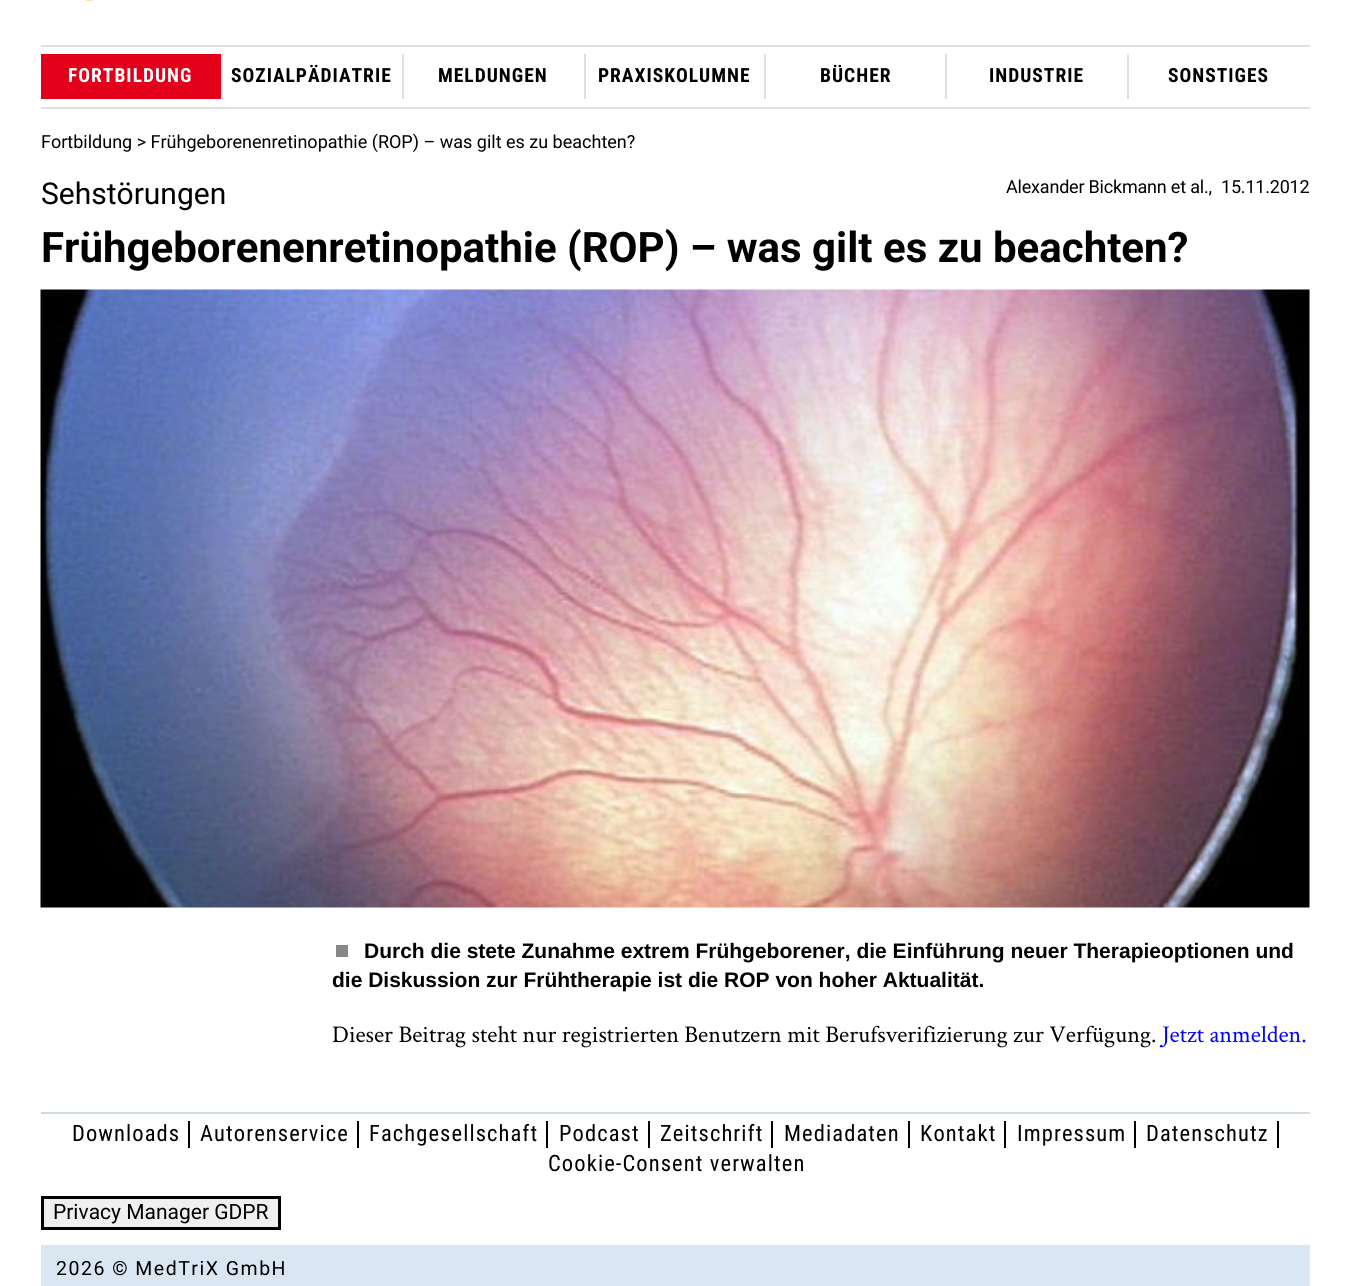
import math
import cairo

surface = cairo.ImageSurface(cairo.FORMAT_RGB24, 1350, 1286)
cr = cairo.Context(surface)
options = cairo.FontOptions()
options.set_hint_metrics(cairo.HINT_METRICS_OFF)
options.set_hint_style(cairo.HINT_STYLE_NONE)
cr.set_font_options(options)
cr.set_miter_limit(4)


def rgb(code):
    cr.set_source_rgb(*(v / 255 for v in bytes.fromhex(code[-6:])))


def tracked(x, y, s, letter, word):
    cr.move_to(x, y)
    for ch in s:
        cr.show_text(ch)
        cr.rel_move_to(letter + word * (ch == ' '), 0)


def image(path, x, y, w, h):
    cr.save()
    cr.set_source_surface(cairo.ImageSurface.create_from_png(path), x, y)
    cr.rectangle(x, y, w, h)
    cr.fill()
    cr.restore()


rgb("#ffffff")
cr.paint()
image("img/1.png", 84, 0, 10, 2)
for x, y, w, h, color in [
    (41, 45, 1269, 2, "#e0e0e0"),
    (41, 107, 1269, 2, "#e0e0e0"),
    (41, 54, 180, 45, "#e2001a"),
    (221, 54, 2, 45, "#e0e0e0"),
    (402, 54, 2, 45, "#e0e0e0"),
    (584, 54, 2, 45, "#e0e0e0"),
    (764, 54, 2, 45, "#e0e0e0"),
    (945, 54, 2, 45, "#e0e0e0"),
    (1127, 54, 2, 45, "#e0e0e0"),
]:
    rgb(color)
    cr.rectangle(x, y, w, h)
    cr.fill()
image("img/2.png", 40, 289, 1270, 619)
for x, y, w, h, color in [
    (336, 945, 12, 12, "#888888"),
    (41, 1112, 1269, 2, "#cfdbe5"),
    (188, 1121, 2, 27, "#000000"),
    (357, 1121, 2, 27, "#000000"),
    (546, 1121, 2, 27, "#000000"),
    (648, 1121, 2, 27, "#000000"),
    (771, 1121, 2, 27, "#000000"),
    (908, 1121, 2, 27, "#000000"),
    (1004, 1121, 2, 27, "#000000"),
    (1134, 1121, 2, 27, "#000000"),
    (1277, 1121, 2, 27, "#000000"),
]:
    rgb(color)
    cr.rectangle(x, y, w, h)
    cr.fill()
rgb("#efefef")
cr.rectangle(42.5, 1197.5, 237, 31)
cr.fill_preserve()
rgb("#000000")
cr.set_line_width(3)
cr.stroke()
rgb("#dae7f2")
cr.rectangle(41, 1245, 1269, 41)
cr.fill()
cr.select_font_face("Roboto Condensed", cairo.FONT_SLANT_NORMAL, cairo.FONT_WEIGHT_BOLD)
cr.set_font_size(19.5)
rgb("#ffffff")
tracked(68, 82, "FORTBILDUNG", 1, 0)
rgb("#000000")
for x, y, s in [
    (231, 82, "SOZIALPÄDIATRIE"),
    (438, 82, "MELDUNGEN"),
    (598, 82, "PRAXISKOLUMNE"),
    (820, 82, "BÜCHER"),
    (989, 82, "INDUSTRIE"),
    (1168, 82, "SONSTIGES"),
]:
    tracked(x, y, s, 1, 0)
cr.select_font_face("Roboto")
cr.set_font_size(18)
cr.move_to(41, 148)
cr.show_text("Fortbildung > Frühgeborenenretinopathie (ROP) – was gilt es zu beachten?")
cr.set_font_size(30)
cr.move_to(41, 204)
cr.show_text("Sehstörungen")
cr.set_font_size(18)
tracked(1006, 193, "Alexander Bickmann et al.,", -0.2, 0)
tracked(1221, 193, "15.11.2012", -0.2, 0)
cr.select_font_face("Roboto", cairo.FONT_SLANT_NORMAL, cairo.FONT_WEIGHT_BOLD)
cr.set_font_size(42)
cr.move_to(41, 262)
cr.show_text("Frühgeborenenretinopathie (ROP) – was gilt es zu beachten?")
cr.select_font_face("Liberation Sans", cairo.FONT_SLANT_NORMAL, cairo.FONT_WEIGHT_BOLD)
cr.set_font_size(21)
cr.move_to(364, 958)
cr.show_text("Durch die stete Zunahme extrem Frühgeborener, die Einführung neuer Therapieoptionen und")
cr.move_to(332, 987)
cr.show_text("die Diskussion zur Frühtherapie ist die ROP von hoher Aktualität.")
cr.select_font_face("Crimson Text")
cr.set_font_size(24)
cr.move_to(332, 1042)
cr.show_text("Dieser Beitrag steht nur registrierten Benutzern mit Berufsverifizierung zur Verfügung.")
rgb("#0000ff")
cr.move_to(1162, 1042)
cr.show_text("Jetzt anmelden.")
cr.select_font_face("Roboto Condensed")
cr.set_font_size(22.5)
rgb("#000000")
for x, y, s in [
    (72, 1141, "Downloads"),
    (200, 1141, "Autorenservice"),
    (369, 1141, "Fachgesellschaft"),
    (559, 1141, "Podcast"),
    (660, 1141, "Zeitschrift"),
    (784, 1141, "Mediadaten"),
    (920, 1141, "Kontakt"),
    (1017, 1141, "Impressum"),
    (1146, 1141, "Datenschutz"),
    (548, 1171, "Cookie-Consent verwalten"),
]:
    tracked(x, y, s, 1.1, 0)
cr.select_font_face("Roboto")
cr.set_font_size(21)
cr.move_to(53, 1219)
cr.show_text("Privacy Manager GDPR")
cr.set_font_size(19.5)
tracked(56, 1275, "2026 © MedTriX GmbH", 1.5, 0)
surface.write_to_png("page.png")
